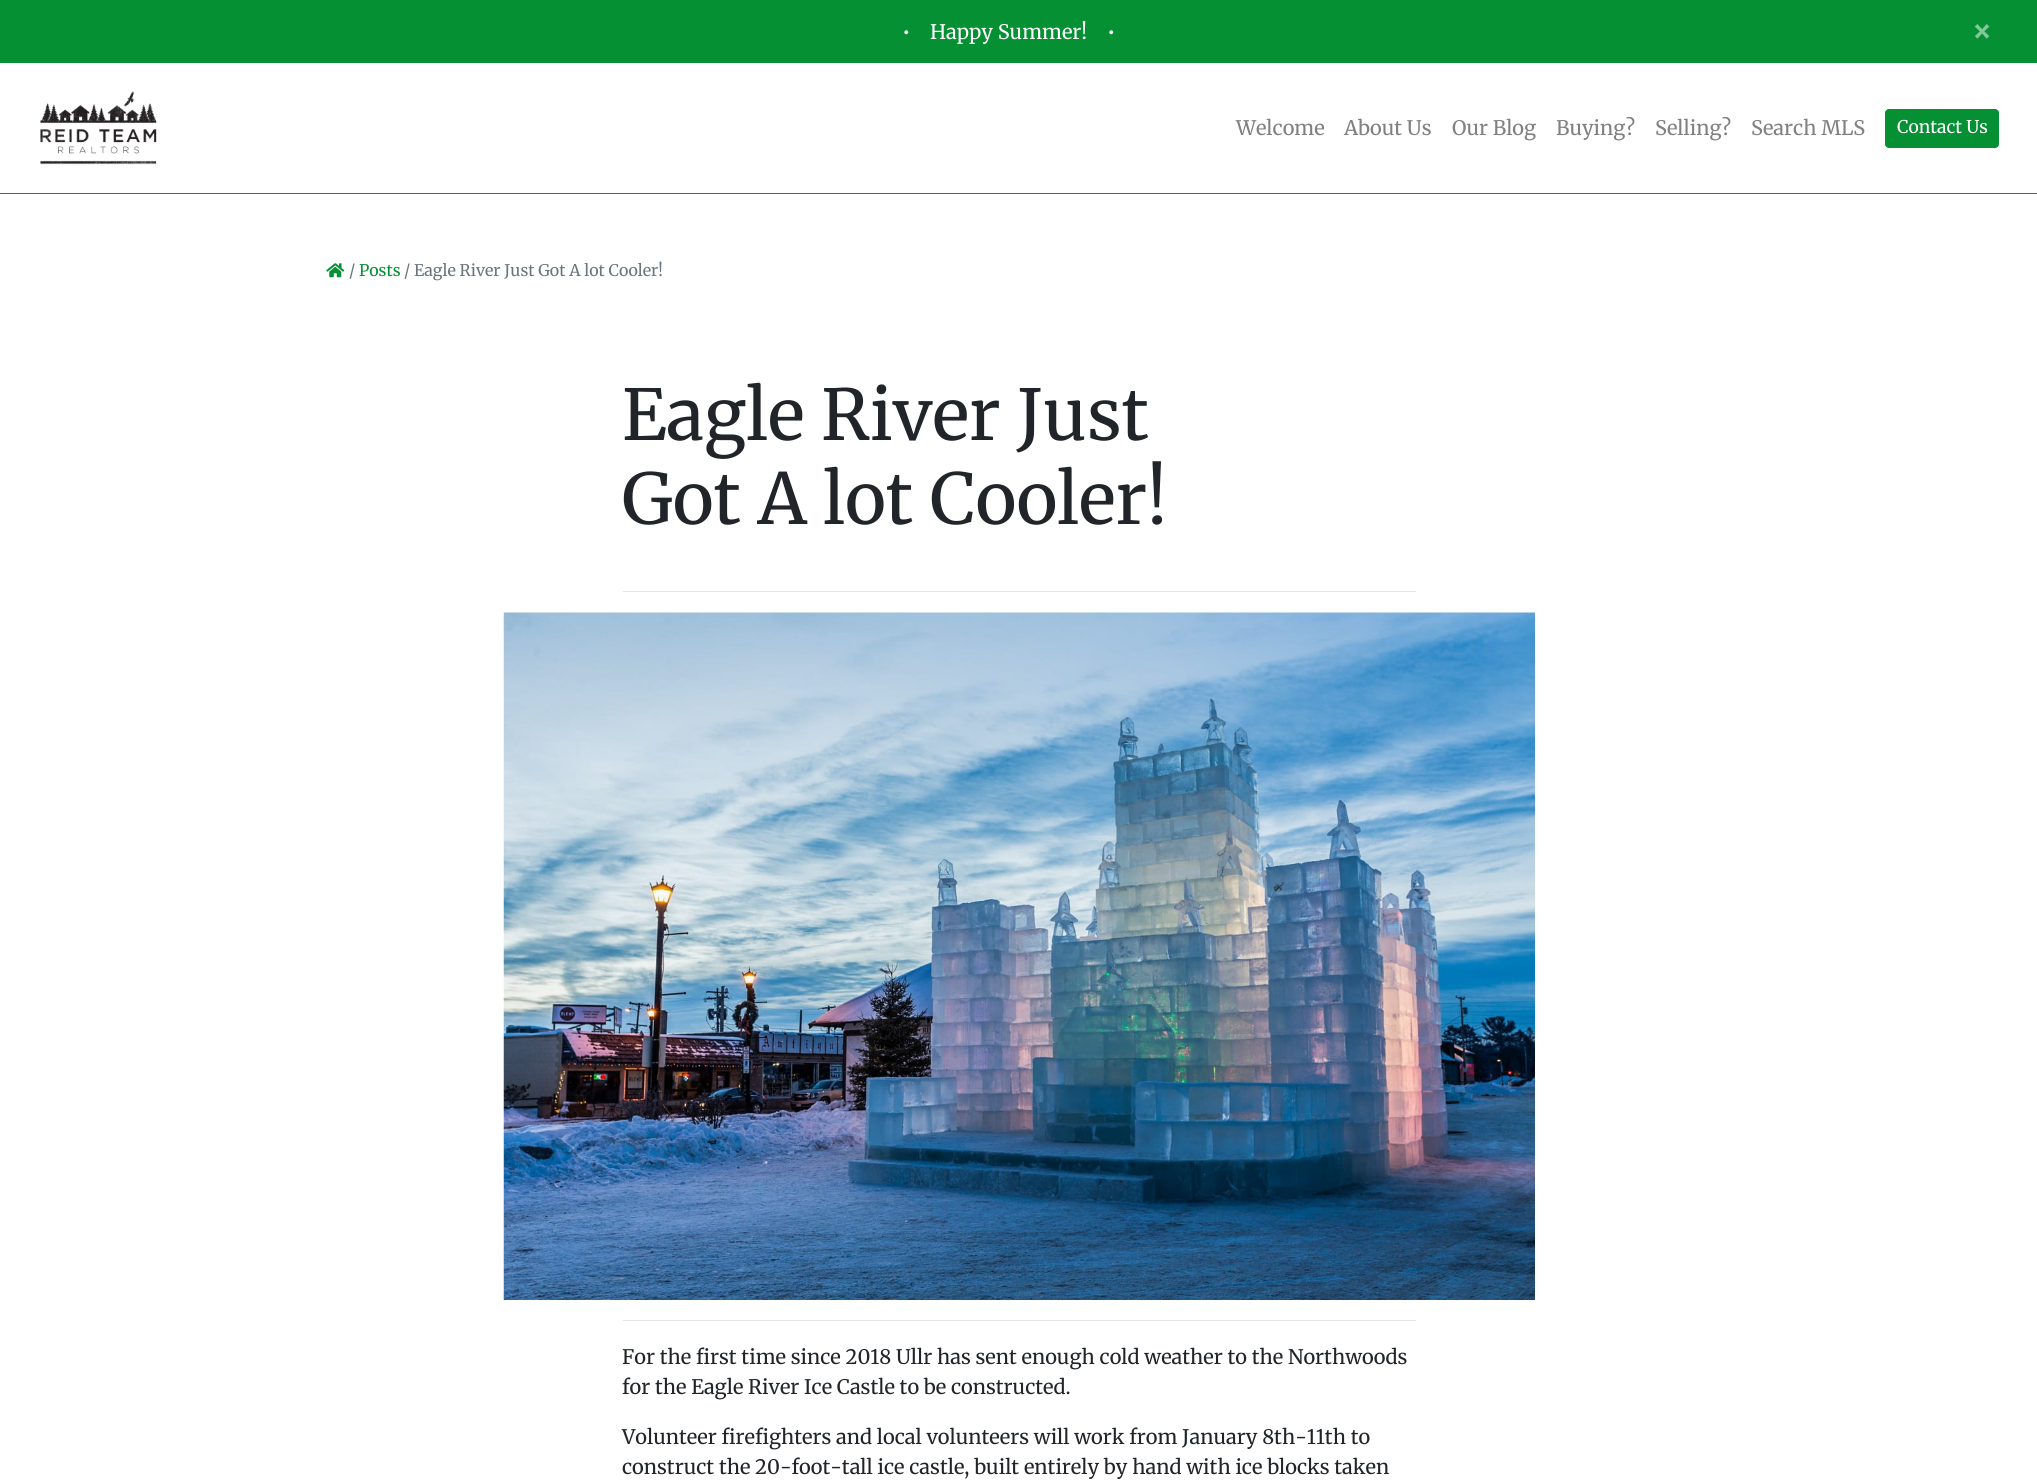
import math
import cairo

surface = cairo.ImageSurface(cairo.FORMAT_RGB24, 2037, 1482)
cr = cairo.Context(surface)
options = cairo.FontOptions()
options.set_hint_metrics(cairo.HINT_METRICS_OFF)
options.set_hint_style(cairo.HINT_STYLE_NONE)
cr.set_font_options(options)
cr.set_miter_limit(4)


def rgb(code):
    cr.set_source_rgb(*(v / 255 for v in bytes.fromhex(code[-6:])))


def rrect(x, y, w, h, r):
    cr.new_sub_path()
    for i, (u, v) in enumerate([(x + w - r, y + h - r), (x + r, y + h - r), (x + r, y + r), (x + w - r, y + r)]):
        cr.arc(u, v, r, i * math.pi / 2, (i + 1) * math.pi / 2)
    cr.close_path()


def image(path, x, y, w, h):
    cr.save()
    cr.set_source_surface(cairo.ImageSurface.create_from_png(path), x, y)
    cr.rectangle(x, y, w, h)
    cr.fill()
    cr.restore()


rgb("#ffffff")
cr.paint()
rgb("#059033")
cr.rectangle(0, 0, 2037, 63)
cr.fill()
cr.rectangle(0, 193, 2037, 1)
cr.fill()
image("img/1.png", 40, 91, 117, 74)
rrect(1885.5, 109.5, 113, 38, 3.5)
cr.fill_preserve()
cr.set_line_width(1)
cr.stroke()
image("img/2.png", 326, 263, 19, 15)
rgb("#e6e6e6")
cr.rectangle(623, 591, 793, 1)
cr.fill()
image("img/3.png", 503, 612, 1032, 688)
cr.rectangle(623, 1320, 793, 1)
cr.fill()
cr.select_font_face("Merriweather")
cr.set_font_size(20)
rgb("#ffffff")
for x, y, s in [
    (902, 39, "•"),
    (930, 39, "Happy Summer!"),
    (1107, 39, "•"),
]:
    cr.move_to(x, y)
    cr.show_text(s)
cr.select_font_face("Merriweather Black")
cr.set_font_size(30)
rgb("#82c899")
cr.move_to(1972, 41)
cr.show_text("×")
cr.select_font_face("Merriweather")
cr.set_font_size(20)
rgb("#808080")
for x, y, s in [
    (1236, 135, "Welcome"),
    (1344, 135, "About Us"),
    (1452, 135, "Our Blog"),
    (1556, 135, "Buying?"),
    (1655, 135, "Selling?"),
    (1751, 135, "Search MLS"),
]:
    cr.move_to(x, y)
    cr.show_text(s)
cr.set_font_size(17.5)
rgb("#ffffff")
cr.move_to(1897, 133)
cr.show_text("Contact Us")
cr.set_font_size(16)
rgb("#6c757d")
cr.move_to(349, 276)
cr.show_text("/")
rgb("#059033")
cr.move_to(359, 276)
cr.show_text("Posts")
rgb("#6c757d")
cr.move_to(404, 276)
cr.show_text("/ Eagle River Just Got A lot Cooler!")
cr.set_font_size(70)
rgb("#212529")
cr.move_to(622, 440)
cr.show_text("Eagle River Just")
cr.move_to(622, 524)
cr.show_text("Got A lot Cooler!")
cr.set_font_size(20)
for x, y, s in [
    (622, 1364, "For the first time since 2018 Ullr has sent enough cold weather to the Northwoods"),
    (622, 1394, "for the Eagle River Ice Castle to be constructed."),
    (622, 1444, "Volunteer firefighters and local volunteers will work from January 8th-11th to"),
    (622, 1474, "construct the 20-foot-tall ice castle, built entirely by hand with ice blocks taken"),
]:
    cr.move_to(x, y)
    cr.show_text(s)
surface.write_to_png("page.png")
